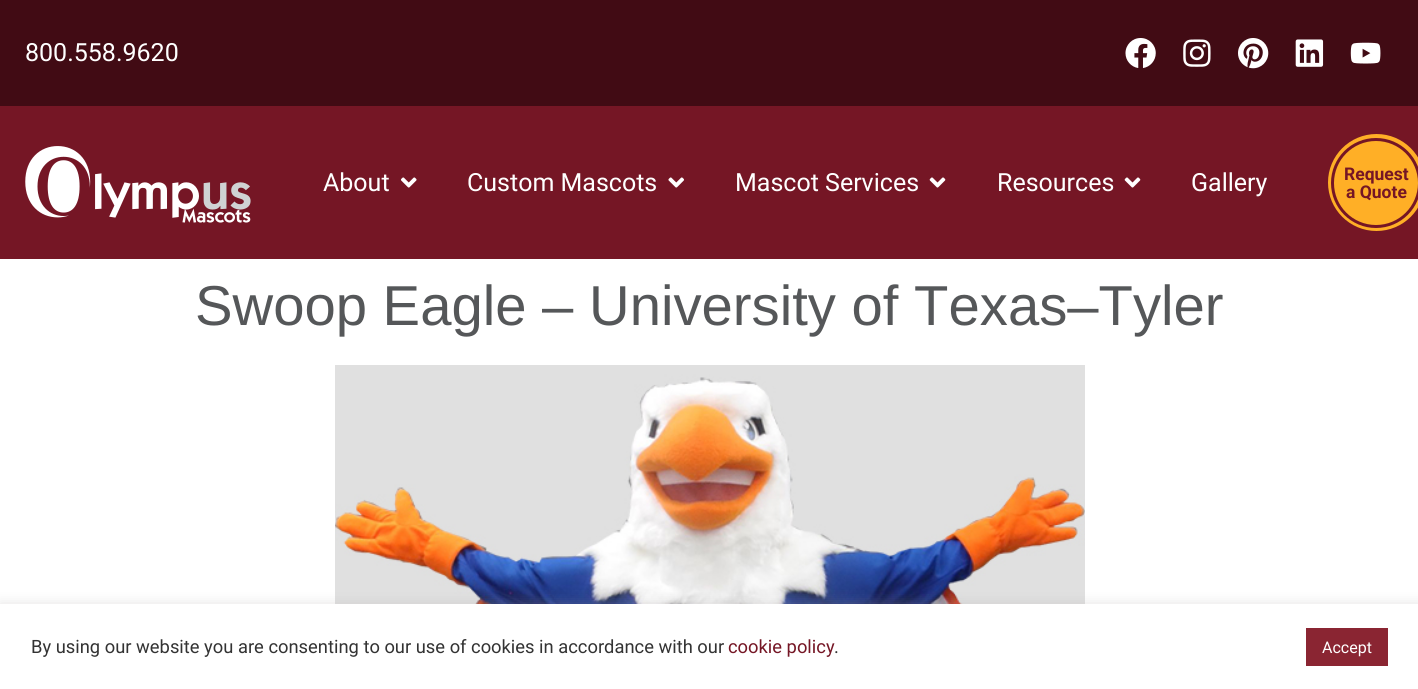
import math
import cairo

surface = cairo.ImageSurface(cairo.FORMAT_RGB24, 1418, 689)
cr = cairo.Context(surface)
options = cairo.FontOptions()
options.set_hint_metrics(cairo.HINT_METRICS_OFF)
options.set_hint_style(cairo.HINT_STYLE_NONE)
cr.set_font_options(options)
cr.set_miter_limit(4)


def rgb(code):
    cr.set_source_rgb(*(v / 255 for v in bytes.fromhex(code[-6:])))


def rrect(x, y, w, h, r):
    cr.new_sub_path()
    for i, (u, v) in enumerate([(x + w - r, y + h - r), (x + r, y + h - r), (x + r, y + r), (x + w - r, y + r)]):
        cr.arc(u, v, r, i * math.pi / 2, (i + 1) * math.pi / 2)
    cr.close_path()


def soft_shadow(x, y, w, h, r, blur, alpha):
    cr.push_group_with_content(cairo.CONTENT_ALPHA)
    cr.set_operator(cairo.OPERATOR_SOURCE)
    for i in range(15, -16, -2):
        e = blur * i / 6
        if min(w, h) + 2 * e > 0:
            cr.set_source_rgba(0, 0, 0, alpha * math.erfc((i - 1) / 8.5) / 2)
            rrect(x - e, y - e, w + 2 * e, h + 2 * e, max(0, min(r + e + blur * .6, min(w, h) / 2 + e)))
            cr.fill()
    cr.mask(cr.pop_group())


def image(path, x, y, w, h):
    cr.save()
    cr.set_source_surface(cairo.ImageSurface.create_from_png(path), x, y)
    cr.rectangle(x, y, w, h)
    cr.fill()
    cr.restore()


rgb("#ffffff")
cr.paint()
rgb("#410b14")
cr.rectangle(0, 0, 1418, 106)
cr.fill()
image("img/1.png", 1125, 38, 31, 30)
image("img/2.png", 1183, 39, 28, 28)
image("img/3.png", 1238, 38, 31, 31)
image("img/4.png", 1295, 39, 29, 28)
image("img/5.png", 1350, 42, 31, 22)
rgb("#751625")
cr.rectangle(0, 106, 1418, 153)
cr.fill()
image("img/6.png", 25, 146, 226, 77)
image("img/7.png", 400, 177, 17, 11)
image("img/8.png", 668, 177, 16, 11)
image("img/9.png", 929, 177, 17, 11)
image("img/9.png", 1124, 177, 17, 11)
rgb("#ffaf26")
cr.arc(1376.5, 182.5, 50, 0, 2 * math.pi)
cr.fill_preserve()
rgb("#751625")
cr.set_line_width(3)
cr.stroke()
cr.arc(1376, 183, 43.5, 0, 2 * math.pi)
cr.stroke()
image("img/10.png", 335, 365, 750, 239)
rgb("#acabab")
soft_shadow(0, 603, 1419, 86, 0, 6, 0.3)
rgb("#ffffff")
cr.rectangle(0, 604, 1418, 85)
cr.fill()
rgb("#8a2532")
cr.rectangle(1306, 628, 82, 38)
cr.fill()
cr.select_font_face("Roboto")
cr.set_font_size(25)
rgb("#ffffff")
for x, y, s in [
    (25, 61, "800.558.9620"),
    (323, 191, "About"),
    (467, 191, "Custom Mascots"),
    (735, 191, "Mascot Services"),
    (997, 191, "Resources"),
    (1191, 191, "Gallery"),
]:
    cr.move_to(x, y)
    cr.show_text(s)
cr.select_font_face("Roboto", cairo.FONT_SLANT_NORMAL, cairo.FONT_WEIGHT_BOLD)
cr.set_font_size(17.5)
rgb("#751625")
cr.move_to(1344, 180)
cr.show_text("Request")
cr.move_to(1346, 198)
cr.show_text("a Quote")
cr.select_font_face("Liberation Sans")
cr.set_font_size(56.25)
rgb("#555759")
cr.move_to(195, 325)
cr.show_text("Swoop Eagle – University of Texas–Tyler")
cr.select_font_face("Roboto")
cr.set_font_size(18.35)
rgb("#333333")
cr.move_to(31, 653)
cr.show_text("By using our website you are consenting to our use of cookies in accordance with our")
rgb("#751625")
cr.move_to(728, 653)
cr.show_text("cookie policy")
rgb("#333333")
cr.move_to(834, 653)
cr.show_text(".")
cr.set_font_size(16)
rgb("#ffffff")
cr.move_to(1322, 653)
cr.show_text("Accept")
surface.write_to_png("page.png")
